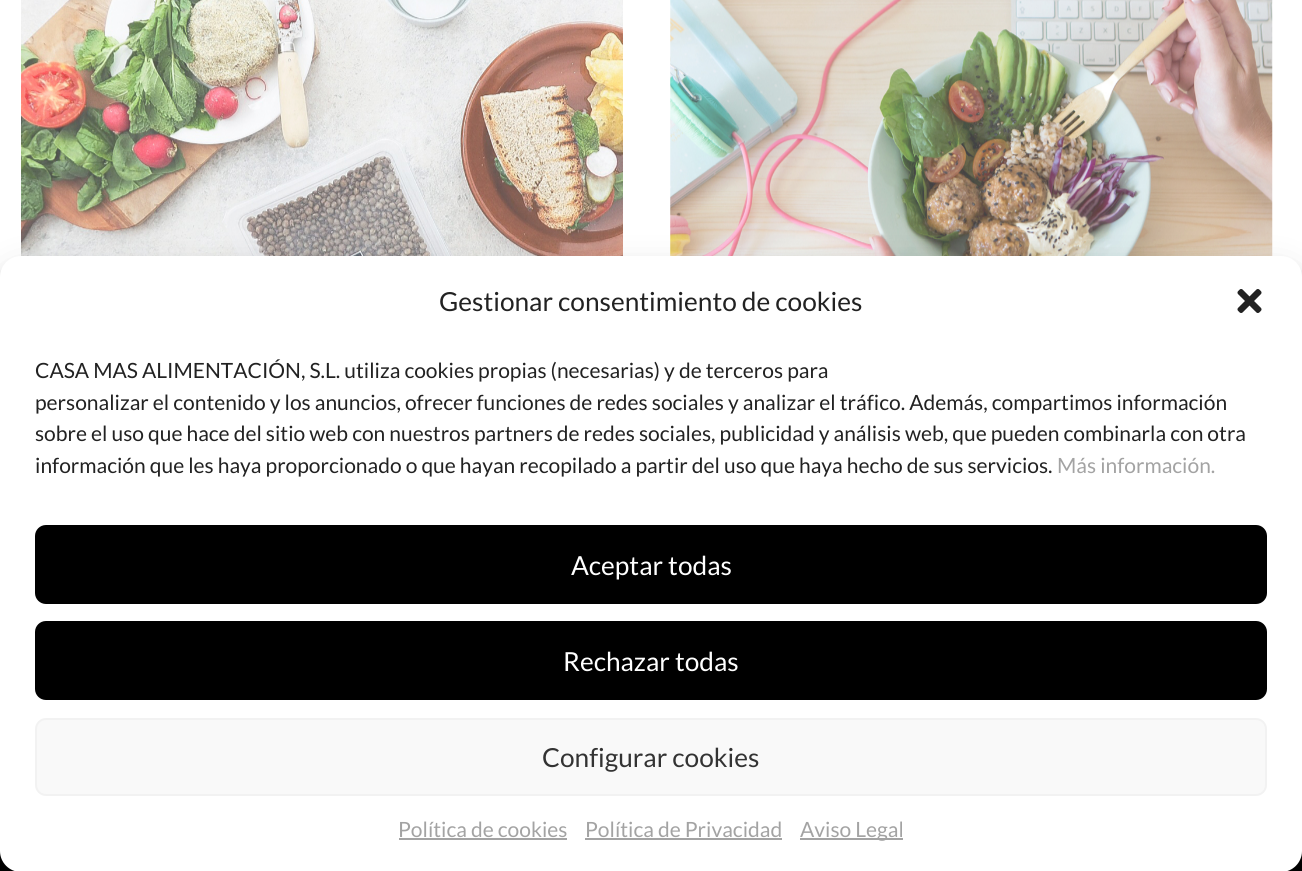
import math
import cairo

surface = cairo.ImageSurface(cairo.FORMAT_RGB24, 1302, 871)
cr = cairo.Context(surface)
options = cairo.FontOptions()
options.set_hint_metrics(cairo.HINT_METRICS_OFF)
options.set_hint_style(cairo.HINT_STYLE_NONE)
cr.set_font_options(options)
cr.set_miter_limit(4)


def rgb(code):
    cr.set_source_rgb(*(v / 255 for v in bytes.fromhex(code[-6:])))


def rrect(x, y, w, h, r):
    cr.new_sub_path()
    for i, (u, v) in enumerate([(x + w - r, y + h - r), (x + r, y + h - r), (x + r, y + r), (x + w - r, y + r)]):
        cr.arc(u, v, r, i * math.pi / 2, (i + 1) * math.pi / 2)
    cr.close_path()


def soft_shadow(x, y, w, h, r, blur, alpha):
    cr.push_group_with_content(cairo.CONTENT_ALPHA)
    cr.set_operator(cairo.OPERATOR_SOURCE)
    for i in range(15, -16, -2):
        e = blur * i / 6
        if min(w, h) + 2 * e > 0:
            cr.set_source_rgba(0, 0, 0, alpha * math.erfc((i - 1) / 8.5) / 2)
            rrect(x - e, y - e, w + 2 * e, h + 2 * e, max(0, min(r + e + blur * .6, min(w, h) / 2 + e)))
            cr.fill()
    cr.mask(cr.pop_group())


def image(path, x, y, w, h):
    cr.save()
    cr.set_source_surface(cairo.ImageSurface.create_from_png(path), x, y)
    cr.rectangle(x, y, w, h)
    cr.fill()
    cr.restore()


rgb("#ffffff")
cr.paint()
image("img/1.png", 21, 0, 602, 256)
image("img/2.png", 670, 0, 603, 256)
rgb("#000000")
cr.rectangle(0, 851, 1302, 20)
cr.fill()
rgb("#000000")
soft_shadow(0, 266, 1302, 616, 21, 5, 0.23)
soft_shadow(0, 273, 1302, 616, 21, 17.5, 0.19)
rgb("#808080")
soft_shadow(1180, 742, 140, 105, 4, 4.5, 1)
rgb("#ffffff")
rrect(0, 256, 1302, 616, 21)
cr.fill()
image("img/3.png", 1237, 289, 25, 24)
rgb("#000000")
rrect(36, 526, 1230, 77, 10)
cr.fill_preserve()
cr.stroke()
rrect(36, 622, 1230, 77, 10)
cr.fill_preserve()
cr.stroke()
rgb("#f9f9f9")
rrect(36, 719, 1230, 76, 10)
cr.fill_preserve()
rgb("#f2f2f2")
cr.stroke()
for x, y, w, h, color in [
    (399, 838, 168, 2, "#a3a3a3"),
    (585, 838, 197, 2, "#a3a3a3"),
    (800, 838, 103, 2, "#a3a3a3"),
]:
    rgb(color)
    cr.rectangle(x, y, w, h)
    cr.fill()
cr.select_font_face("Lato")
cr.set_font_size(26.25)
rgb("#222222")
cr.move_to(439, 311)
cr.show_text("Gestionar consentimiento de cookies")
cr.set_font_size(21)
for x, y, s in [
    (35, 378, "CASA MAS ALIMENTACIÓN, S.L. utiliza cookies propias (necesarias) y de terceros para"),
    (35, 410, "personalizar el contenido y los anuncios, ofrecer funciones de redes sociales y analizar el tráfico. Además, compartimos información"),
    (35, 441, "sobre el uso que hace del sitio web con nuestros partners de redes sociales, publicidad y análisis web, que pueden combinarla con otra"),
    (35, 473, "información que les haya proporcionado o que hayan recopilado a partir del uso que haya hecho de sus servicios."),
]:
    cr.move_to(x, y)
    cr.show_text(s)
rgb("#a3a3a3")
cr.move_to(1057, 473)
cr.show_text("Más información.")
cr.set_font_size(26.25)
rgb("#ffffff")
cr.move_to(571, 575)
cr.show_text("Aceptar todas")
cr.move_to(563, 671)
cr.show_text("Rechazar todas")
rgb("#333333")
cr.move_to(542, 767)
cr.show_text("Configurar cookies")
cr.set_font_size(21)
rgb("#a3a3a3")
for x, y, s in [
    (398, 837, "Política de cookies"),
    (585, 837, "Política de Privacidad"),
    (800, 837, "Aviso Legal"),
]:
    cr.move_to(x, y)
    cr.show_text(s)
surface.write_to_png("page.png")
